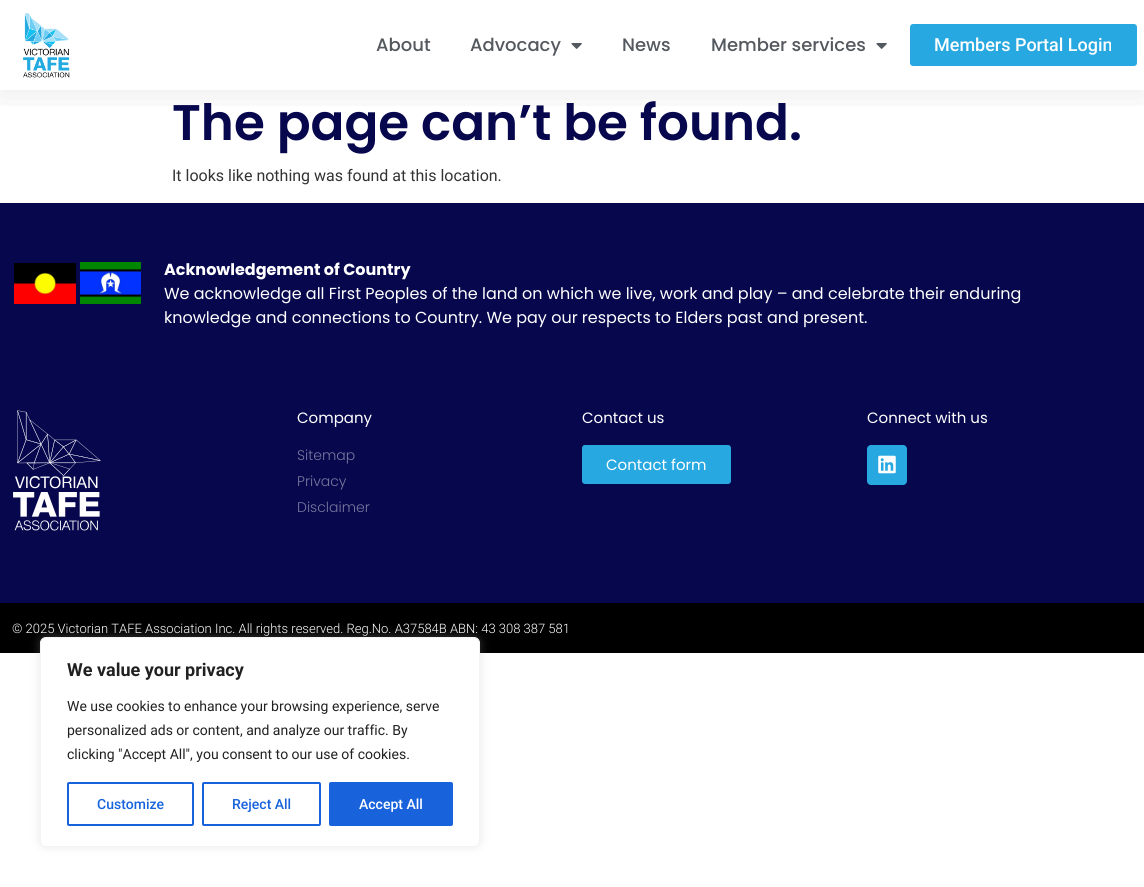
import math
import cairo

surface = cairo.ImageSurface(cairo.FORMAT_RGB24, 1144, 887)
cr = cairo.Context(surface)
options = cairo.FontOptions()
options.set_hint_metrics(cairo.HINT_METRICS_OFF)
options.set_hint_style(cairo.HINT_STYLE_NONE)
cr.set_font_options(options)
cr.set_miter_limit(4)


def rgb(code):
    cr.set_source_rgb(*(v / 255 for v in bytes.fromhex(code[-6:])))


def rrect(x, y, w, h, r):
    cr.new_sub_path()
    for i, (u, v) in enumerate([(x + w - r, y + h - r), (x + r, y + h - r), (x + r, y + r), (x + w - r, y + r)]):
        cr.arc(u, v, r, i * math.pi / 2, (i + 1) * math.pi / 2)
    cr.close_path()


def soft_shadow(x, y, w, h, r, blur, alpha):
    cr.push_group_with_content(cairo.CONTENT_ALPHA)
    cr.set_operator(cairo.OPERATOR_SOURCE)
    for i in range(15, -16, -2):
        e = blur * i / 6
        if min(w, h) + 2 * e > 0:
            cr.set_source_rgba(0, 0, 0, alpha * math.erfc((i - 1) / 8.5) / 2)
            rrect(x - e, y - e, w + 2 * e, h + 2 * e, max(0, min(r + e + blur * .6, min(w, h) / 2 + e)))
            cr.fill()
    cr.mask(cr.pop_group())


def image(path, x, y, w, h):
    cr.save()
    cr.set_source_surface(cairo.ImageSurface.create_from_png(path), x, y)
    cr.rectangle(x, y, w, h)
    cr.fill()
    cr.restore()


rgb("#ffffff")
cr.paint()
cr.save()
cr.rectangle(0, 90, 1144, 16)
cr.clip()
rgb("#000000")
soft_shadow(0, 0, 1144, 90, 0, 19, 0.1)
cr.restore()
image("img/1.png", 23, 13, 47, 65)
image("img/2.png", 571, 43, 11, 6)
image("img/2.png", 876, 43, 11, 6)
rgb("#27a8e0")
rrect(910, 24, 227, 42, 3)
cr.fill()
rgb("#07074e")
cr.rectangle(0, 203, 1144, 400)
cr.fill()
image("img/3.png", 14, 263, 62, 41)
image("img/4.png", 80, 262, 61, 42)
image("img/5.png", 13, 410, 88, 121)
rgb("#27a8e0")
rrect(582, 445, 149, 39, 3)
cr.fill()
rrect(867, 445, 40, 40, 4)
cr.fill()
image("img/6.png", 878, 455, 18, 19)
rgb("#000000")
cr.rectangle(0, 603, 1144, 50)
cr.fill()
rgb("#acabab")
soft_shadow(40, 636, 440, 210, 6, 5, 0.3)
rgb("#ffffff")
rrect(40.5, 637.5, 439, 209, 5.5)
cr.fill_preserve()
rgb("#f4f4f4")
cr.set_line_width(1)
cr.stroke()
rrect(68, 783, 125, 42, 1)
rgb("#1863dc")
cr.set_line_width(2)
cr.stroke()
rrect(203, 783, 117, 42, 1)
cr.stroke()
rrect(330, 783, 122, 42, 1)
cr.fill_preserve()
cr.stroke()
cr.select_font_face("Poppins Medium")
cr.set_font_size(18)
rgb("#54595f")
for x, y, s in [
    (376, 51, "About"),
    (470, 51, "Advocacy"),
    (622, 51, "News"),
    (711, 51, "Member services"),
]:
    cr.move_to(x, y)
    cr.show_text(s)
cr.select_font_face("Roboto Medium")
rgb("#ffffff")
cr.move_to(934, 51)
cr.show_text("Members Portal Login")
cr.select_font_face("Poppins SemiBold")
cr.set_font_size(50)
rgb("#07074e")
cr.move_to(172, 140)
cr.show_text("The page can’t be found.")
cr.select_font_face("Roboto")
cr.set_font_size(16)
rgb("#333333")
cr.move_to(172, 181)
cr.show_text("It looks like nothing was found at this location.")
cr.select_font_face("Poppins", cairo.FONT_SLANT_NORMAL, cairo.FONT_WEIGHT_BOLD)
rgb("#ffffff")
cr.move_to(164, 275)
cr.show_text("Acknowledgement of Country")
cr.select_font_face("Poppins")
cr.move_to(164, 299)
cr.show_text("We acknowledge all First Peoples of the land on which we live, work and play – and celebrate their enduring")
cr.move_to(164, 323)
cr.show_text("knowledge and connections to Country. We pay our respects to Elders past and present.")
cr.set_font_size(15)
cr.move_to(297, 423)
cr.show_text("Company")
cr.select_font_face("Poppins Light")
cr.set_font_size(14)
rgb("#77779e")
for x, y, s in [
    (297, 460, "Sitemap"),
    (297, 486, "Privacy"),
    (297, 512, "Disclaimer"),
]:
    cr.move_to(x, y)
    cr.show_text(s)
cr.select_font_face("Poppins")
cr.set_font_size(15)
rgb("#ffffff")
for x, y, s in [
    (582, 423, "Contact us"),
    (606, 470, "Contact form"),
    (867, 423, "Connect with us"),
]:
    cr.move_to(x, y)
    cr.show_text(s)
cr.select_font_face("Roboto Light")
cr.set_font_size(13)
cr.move_to(12, 633)
cr.show_text("© 2025 Victorian TAFE Association Inc. All rights reserved. Reg.No. A37584B ABN: 43 308 387 581")
cr.select_font_face("Roboto", cairo.FONT_SLANT_NORMAL, cairo.FONT_WEIGHT_BOLD)
cr.set_font_size(18)
rgb("#212121")
cr.move_to(67, 676)
cr.show_text("We value your privacy")
cr.select_font_face("Roboto")
cr.set_font_size(14)
for x, y, s in [
    (67, 711, "We use cookies to enhance your browsing experience, serve"),
    (67, 735, "personalized ads or content, and analyze our traffic. By"),
    (67, 759, "clicking \"Accept All\", you consent to our use of cookies."),
]:
    cr.move_to(x, y)
    cr.show_text(s)
cr.select_font_face("Roboto Medium")
rgb("#1863dc")
cr.move_to(97, 809)
cr.show_text("Customize")
cr.move_to(232, 809)
cr.show_text("Reject All")
rgb("#ffffff")
cr.move_to(359, 809)
cr.show_text("Accept All")
surface.write_to_png("page.png")
